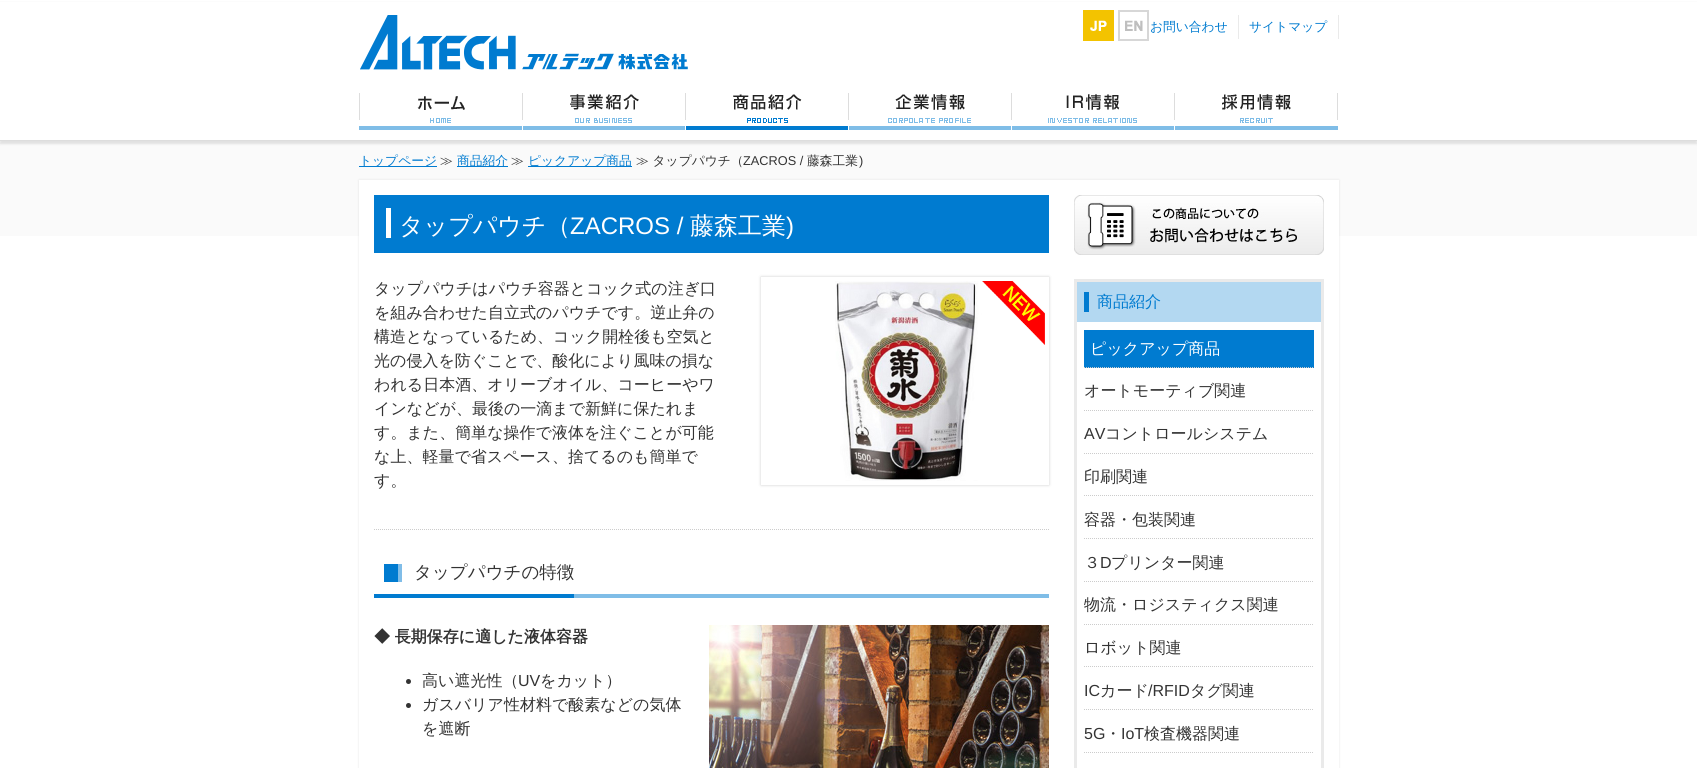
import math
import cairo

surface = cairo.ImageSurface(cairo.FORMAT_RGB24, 1697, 768)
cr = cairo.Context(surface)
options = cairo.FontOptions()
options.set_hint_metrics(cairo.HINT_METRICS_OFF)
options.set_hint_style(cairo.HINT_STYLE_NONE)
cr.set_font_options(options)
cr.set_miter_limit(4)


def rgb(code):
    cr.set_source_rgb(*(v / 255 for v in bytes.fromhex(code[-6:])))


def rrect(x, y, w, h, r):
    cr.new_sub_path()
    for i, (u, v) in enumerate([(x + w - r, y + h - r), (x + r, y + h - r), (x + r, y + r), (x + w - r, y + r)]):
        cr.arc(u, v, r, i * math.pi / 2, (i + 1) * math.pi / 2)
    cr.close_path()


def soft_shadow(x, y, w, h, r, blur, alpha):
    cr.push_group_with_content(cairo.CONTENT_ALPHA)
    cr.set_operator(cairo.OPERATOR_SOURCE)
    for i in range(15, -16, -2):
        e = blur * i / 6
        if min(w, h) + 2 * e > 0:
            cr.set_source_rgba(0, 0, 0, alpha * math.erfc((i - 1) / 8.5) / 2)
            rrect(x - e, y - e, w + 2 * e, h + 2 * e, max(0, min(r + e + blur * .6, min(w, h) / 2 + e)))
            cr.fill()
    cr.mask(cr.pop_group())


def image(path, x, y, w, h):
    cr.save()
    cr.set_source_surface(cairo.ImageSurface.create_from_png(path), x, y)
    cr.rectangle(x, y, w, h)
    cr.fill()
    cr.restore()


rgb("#ffffff")
cr.paint()
rgb("#fafafa")
cr.rectangle(0, 141, 1697, 95)
cr.fill()
rgb("#000000")
soft_shadow(0, 3, 1697, 141, 0, 1, 0.1)
rgb("#ffffff")
cr.rectangle(0, 2, 1697, 138)
cr.fill()
rgb("#dddddd")
cr.rectangle(0, 140, 1697, 1)
cr.fill()
image("img/1.png", 360, 15, 328, 55)
image("img/2.png", 1083, 10, 31, 31)
image("img/3.png", 1118, 10, 31, 31)
rgb("#eaeaea")
cr.rectangle(1238, 15, 1, 24)
cr.fill()
cr.rectangle(1338, 15, 1, 24)
cr.fill()
image("img/4.png", 359, 93, 163, 37)
image("img/5.png", 522, 93, 163, 37)
image("img/6.png", 685, 93, 163, 37)
image("img/7.png", 848, 93, 163, 37)
image("img/8.png", 1011, 93, 163, 37)
image("img/9.png", 1174, 93, 164, 37)
for x, y, w, h, color in [
    (359, 166, 78, 1, "#007bd0"),
    (457, 166, 51, 1, "#007bd0"),
    (528, 166, 104, 1, "#007bd0"),
]:
    rgb(color)
    cr.rectangle(x, y, w, h)
    cr.fill()
rgb("#000000")
soft_shadow(359, 180, 980, 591, 0, 1, 0.1)
for x, y, w, h, color in [
    (359, 180, 980, 588, "#ffffff"),
    (374, 195, 675, 58, "#007bd0"),
    (386, 208, 5, 30, "#ffffff"),
]:
    rgb(color)
    cr.rectangle(x, y, w, h)
    cr.fill()
cr.new_path()
cr.move_to(374, 529.5)
cr.line_to(1049, 529.5)
rgb("#cccccc")
cr.set_line_width(1)
cr.set_dash([1, 1])
cr.stroke()
cr.save()
cr.set_fill_rule(cairo.FILL_RULE_EVEN_ODD)
cr.new_path()
cr.move_to(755, 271)
cr.line_to(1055, 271)
cr.line_to(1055, 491)
cr.line_to(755, 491)
cr.close_path()
cr.move_to(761, 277)
cr.line_to(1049, 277)
cr.line_to(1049, 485)
cr.line_to(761, 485)
cr.close_path()
cr.clip()
rgb("#000000")
soft_shadow(761, 277, 288, 208, 0, 1.5, 0.2)
cr.restore()
image("img/10.png", 835, 281, 210, 200)
image("img/11.png", 384, 564, 18, 18)
image("img/12.png", 374, 594, 675, 4)
image("img/13.png", 709, 625, 340, 143)
rgb("#333333")
cr.arc(408.5, 681.5, 2.5, 0, 2 * math.pi)
cr.fill()
cr.arc(408.5, 705.5, 2.5, 0, 2 * math.pi)
cr.fill()
image("img/14.png", 1074, 195, 250, 60)
cr.rectangle(1075.5, 280.5, 247, 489)
rgb("#eaeaea")
cr.set_line_width(3)
cr.set_dash([])
cr.stroke()
for x, y, w, h, color in [
    (1077, 282, 244, 40, "#b3d8f1"),
    (1084, 292, 5, 20, "#007bd0"),
    (1084, 330, 230, 38, "#007bd0"),
]:
    rgb(color)
    cr.rectangle(x, y, w, h)
    cr.fill()
cr.new_path()
cr.move_to(1084, 367.5)
cr.line_to(1314, 367.5)
rgb("#cccccc")
cr.set_line_width(1)
cr.set_dash([1, 1])
cr.stroke()
cr.new_path()
cr.move_to(1084, 410.5)
cr.line_to(1314, 410.5)
cr.stroke()
cr.new_path()
cr.move_to(1084, 453.5)
cr.line_to(1314, 453.5)
cr.stroke()
cr.new_path()
cr.move_to(1084, 495.5)
cr.line_to(1314, 495.5)
cr.stroke()
cr.new_path()
cr.move_to(1084, 538.5)
cr.line_to(1314, 538.5)
cr.stroke()
cr.new_path()
cr.move_to(1084, 581.5)
cr.line_to(1314, 581.5)
cr.stroke()
cr.new_path()
cr.move_to(1084, 624.5)
cr.line_to(1314, 624.5)
cr.stroke()
cr.new_path()
cr.move_to(1084, 666.5)
cr.line_to(1314, 666.5)
cr.stroke()
cr.new_path()
cr.move_to(1084, 709.5)
cr.line_to(1314, 709.5)
cr.stroke()
cr.new_path()
cr.move_to(1084, 752.5)
cr.line_to(1314, 752.5)
cr.stroke()
cr.select_font_face("WenQuanYi Zen Hei Medium")
cr.set_font_size(12.75)
rgb("#007bd0")
for x, y, s in [
    (1150, 31, "お問い合わせ"),
    (1249, 31, "サイトマップ"),
    (359, 165, "トップページ"),
]:
    cr.move_to(x, y)
    cr.show_text(s)
rgb("#333333")
cr.move_to(440, 165)
cr.show_text("≫")
rgb("#007bd0")
cr.move_to(457, 165)
cr.show_text("商品紹介")
rgb("#333333")
cr.move_to(511, 165)
cr.show_text("≫")
rgb("#007bd0")
cr.move_to(528, 165)
cr.show_text("ピックアップ商品")
rgb("#333333")
cr.move_to(636, 165)
cr.show_text("≫ タップパウチ（")
cr.select_font_face("Liberation Sans")
cr.move_to(743, 165)
cr.show_text("ZACROS /")
cr.select_font_face("WenQuanYi Zen Hei Medium")
cr.move_to(807, 165)
cr.show_text("藤森工業")
cr.select_font_face("Liberation Sans")
cr.move_to(859, 165)
cr.show_text(")")
cr.select_font_face("WenQuanYi Zen Hei Medium")
cr.set_font_size(24)
rgb("#ffffff")
cr.move_to(399, 234)
cr.show_text("タップパウチ（")
cr.select_font_face("Liberation Sans")
cr.move_to(570, 234)
cr.show_text("ZACROS /")
cr.select_font_face("WenQuanYi Zen Hei Medium")
cr.move_to(690, 234)
cr.show_text("藤森工業")
cr.select_font_face("Liberation Sans")
cr.move_to(786, 234)
cr.show_text(")")
cr.select_font_face("WenQuanYi Zen Hei Medium")
cr.set_font_size(16)
rgb("#333333")
for x, y, s in [
    (374, 294, "タップパウチはパウチ容器とコック式の注ぎ口"),
    (374, 318, "を組み合わせた自立式のパウチです。逆止弁の"),
    (374, 342, "構造となっているため、コック開栓後も空気と"),
    (374, 366, "光の侵入を防ぐことで、酸化により風味の損な"),
    (374, 390, "われる日本酒、オリーブオイル、コーヒーやワ"),
    (374, 414, "インなどが、最後の一滴まで新鮮に保たれま"),
    (374, 438, "す。また、簡単な操作で液体を注ぐことが可能"),
    (374, 462, "な上、軽量で省スペース、捨てるのも簡単で"),
    (374, 486, "す。"),
]:
    cr.move_to(x, y)
    cr.show_text(s)
cr.set_font_size(17.5)
cr.move_to(414, 578)
cr.show_text("タップパウチの特徴")
cr.select_font_face("WenQuanYi Zen Hei", cairo.FONT_SLANT_NORMAL, cairo.FONT_WEIGHT_BOLD)
cr.set_font_size(16)
cr.move_to(374, 642)
cr.show_text("◆ 長期保存に適した液体容器")
cr.select_font_face("WenQuanYi Zen Hei Medium")
cr.move_to(422, 686)
cr.show_text("高い遮光性（")
cr.select_font_face("Liberation Sans")
cr.move_to(518, 686)
cr.show_text("UV")
cr.select_font_face("WenQuanYi Zen Hei Medium")
for x, y, s in [
    (540, 686, "をカット）"),
    (422, 710, "ガスバリア性材料で酸素などの気体"),
    (422, 734, "を遮断"),
]:
    cr.move_to(x, y)
    cr.show_text(s)
rgb("#007bd0")
cr.move_to(1097, 307)
cr.show_text("商品紹介")
rgb("#ffffff")
cr.move_to(1090, 354)
cr.show_text("ピックアップ商品")
rgb("#333333")
cr.move_to(1084, 396)
cr.show_text("オートモーティブ関連")
cr.select_font_face("Liberation Sans")
cr.move_to(1084, 439)
cr.show_text("AV")
cr.select_font_face("WenQuanYi Zen Hei Medium")
for x, y, s in [
    (1105, 439, "コントロールシステム"),
    (1084, 482, "印刷関連"),
    (1084, 525, "容器・包装関連"),
    (1084, 568, "３"),
]:
    cr.move_to(x, y)
    cr.show_text(s)
cr.select_font_face("Liberation Sans")
cr.move_to(1100, 568)
cr.show_text("D")
cr.select_font_face("WenQuanYi Zen Hei Medium")
for x, y, s in [
    (1111, 568, "プリンター関連"),
    (1084, 610, "物流・ロジスティクス関連"),
    (1084, 653, "ロボット関連"),
]:
    cr.move_to(x, y)
    cr.show_text(s)
cr.select_font_face("Liberation Sans")
cr.move_to(1084, 696)
cr.show_text("IC")
cr.select_font_face("WenQuanYi Zen Hei Medium")
cr.move_to(1100, 696)
cr.show_text("カード")
cr.select_font_face("Liberation Sans")
cr.move_to(1148, 696)
cr.show_text("/RFID")
cr.select_font_face("WenQuanYi Zen Hei Medium")
cr.move_to(1190, 696)
cr.show_text("タグ関連")
cr.select_font_face("Liberation Sans")
cr.move_to(1084, 739)
cr.show_text("5G")
cr.select_font_face("WenQuanYi Zen Hei Medium")
cr.move_to(1105, 739)
cr.show_text("・")
cr.select_font_face("Liberation Sans")
cr.move_to(1121, 739)
cr.show_text("IoT")
cr.select_font_face("WenQuanYi Zen Hei Medium")
cr.move_to(1144, 739)
cr.show_text("検査機器関連")
surface.write_to_png("page.png")
